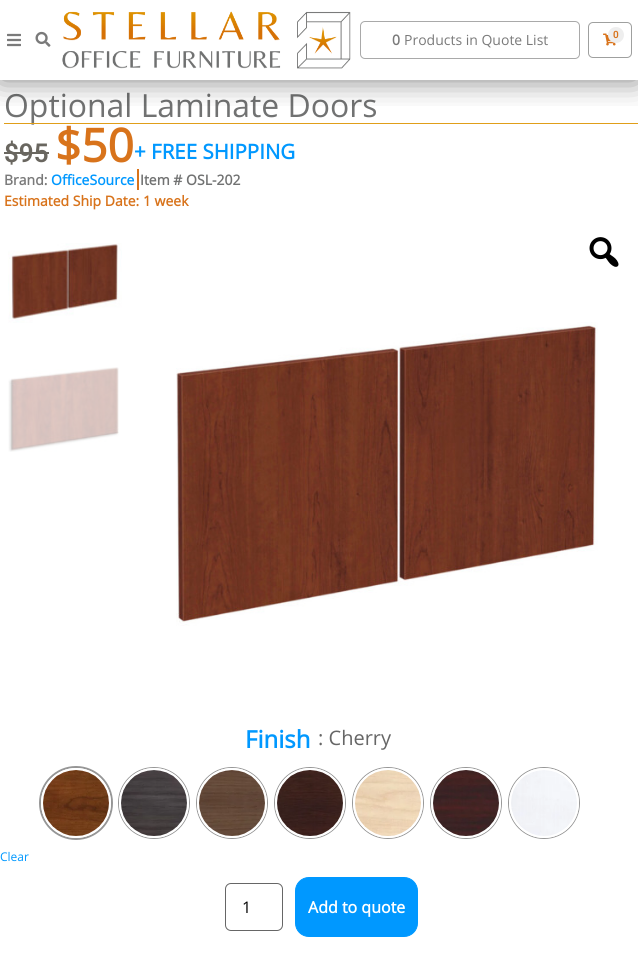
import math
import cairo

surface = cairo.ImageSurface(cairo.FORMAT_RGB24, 638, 962)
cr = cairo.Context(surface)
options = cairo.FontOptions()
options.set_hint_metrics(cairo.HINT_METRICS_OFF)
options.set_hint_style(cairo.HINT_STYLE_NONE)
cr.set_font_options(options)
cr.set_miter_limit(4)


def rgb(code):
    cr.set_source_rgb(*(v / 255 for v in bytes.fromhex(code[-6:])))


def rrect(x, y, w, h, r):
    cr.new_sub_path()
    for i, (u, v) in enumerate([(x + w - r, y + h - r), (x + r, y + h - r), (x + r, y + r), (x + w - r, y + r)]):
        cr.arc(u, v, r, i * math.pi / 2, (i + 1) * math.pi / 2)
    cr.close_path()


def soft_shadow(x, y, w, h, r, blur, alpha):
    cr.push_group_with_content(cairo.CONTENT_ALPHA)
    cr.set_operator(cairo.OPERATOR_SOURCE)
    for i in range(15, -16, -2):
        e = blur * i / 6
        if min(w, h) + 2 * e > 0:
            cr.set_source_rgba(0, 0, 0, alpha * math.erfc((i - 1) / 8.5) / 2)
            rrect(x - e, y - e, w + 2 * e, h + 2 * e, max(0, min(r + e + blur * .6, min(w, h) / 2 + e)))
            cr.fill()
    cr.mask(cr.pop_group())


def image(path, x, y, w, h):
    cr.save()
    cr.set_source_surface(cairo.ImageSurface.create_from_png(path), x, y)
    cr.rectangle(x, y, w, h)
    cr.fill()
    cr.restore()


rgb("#ffffff")
cr.paint()
rgb("#69665f")
cr.rectangle(4, 152, 45, 2)
cr.fill()
rgb("#d8731b")
cr.rectangle(137, 169, 2, 21)
cr.fill()
image("img/5.png", 8, 243, 114, 80)
image("img/6.png", 8, 367, 111, 85)
image("img/7.png", 589, 237, 30, 30)
image("img/8.png", 176, 322, 422, 304)
cr.arc(76, 803, 36, 0, 2 * math.pi)
rgb("#969696")
cr.stroke()
rgb("#ffffff")
cr.arc(76, 803, 35, 0, 2 * math.pi)
cr.fill()
image("img/9.png", 43, 770, 66, 66)
cr.arc(154, 803, 35.5, 0, 2 * math.pi)
rgb("#969696")
cr.set_line_width(1)
cr.stroke()
rgb("#ffffff")
cr.arc(154, 803, 35, 0, 2 * math.pi)
cr.fill()
image("img/10.png", 121, 770, 66, 66)
cr.arc(232, 803, 35.5, 0, 2 * math.pi)
rgb("#969696")
cr.stroke()
rgb("#ffffff")
cr.arc(232, 803, 35, 0, 2 * math.pi)
cr.fill()
image("img/11.png", 199, 770, 66, 66)
cr.arc(310, 803, 35.5, 0, 2 * math.pi)
rgb("#969696")
cr.stroke()
rgb("#ffffff")
cr.arc(310, 803, 35, 0, 2 * math.pi)
cr.fill()
image("img/12.png", 277, 770, 66, 66)
cr.arc(388, 803, 35.5, 0, 2 * math.pi)
rgb("#969696")
cr.stroke()
rgb("#ffffff")
cr.arc(388, 803, 35, 0, 2 * math.pi)
cr.fill()
image("img/13.png", 355, 770, 66, 66)
cr.arc(466, 803, 35.5, 0, 2 * math.pi)
rgb("#969696")
cr.stroke()
rgb("#ffffff")
cr.arc(466, 803, 35, 0, 2 * math.pi)
cr.fill()
image("img/14.png", 433, 770, 66, 66)
cr.arc(544, 803, 35.5, 0, 2 * math.pi)
rgb("#969696")
cr.stroke()
rgb("#ffffff")
cr.arc(544, 803, 35, 0, 2 * math.pi)
cr.fill()
image("img/15.png", 511, 770, 66, 66)
rrect(225.5, 883.5, 57, 47, 5.5)
rgb("#666666")
cr.stroke()
rgb("#0098ff")
rrect(295.5, 877.5, 122, 59, 13.5)
cr.fill_preserve()
cr.stroke()
cr.select_font_face("Open Sans")
cr.set_font_size(31.9)
rgb("#717272")
cr.move_to(4, 117)
cr.show_text("Optional Laminate Doors")
rgb("#e09e19")
cr.rectangle(4, 123, 634, 1)
cr.fill()
cr.save()
cr.rectangle(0, 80, 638, 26)
cr.clip()
rgb("#000000")
soft_shadow(0, 0, 638, 80, 0, 15, 0.5)
cr.restore()
rrect(360.5, 21.5, 219, 37, 4.5)
rgb("#a9a9a9")
cr.stroke()
cr.set_font_size(14)
rgb("#7a7a7a")
cr.move_to(404, 45)
cr.show_text("Products in Quote List")
cr.select_font_face("Open Sans", cairo.FONT_SLANT_NORMAL, cairo.FONT_WEIGHT_BOLD)
cr.move_to(392, 45)
cr.show_text("0")
rrect(588.5, 22.5, 43, 35, 4.5)
rgb("#9fa09f")
cr.stroke()
image("img/4.png", 603, 33, 13, 13)
rgb("#eeeeee")
cr.arc(616, 35, 8, 0, 2 * math.pi)
cr.fill()
cr.select_font_face("Roboto SemiBold")
cr.set_font_size(10)
rgb("#d8731b")
cr.move_to(613, 38)
cr.show_text("0")
image("img/3.png", 62, 11, 289, 58)
image("img/2.png", 35, 31, 16, 16)
image("img/1.png", 7, 33, 14, 14)
cr.set_font_size(26)
rgb("#69665f")
cr.move_to(4, 162)
cr.show_text("$95")
cr.select_font_face("Open Sans", cairo.FONT_SLANT_NORMAL, cairo.FONT_WEIGHT_BOLD)
cr.set_font_size(46)
rgb("#d8731b")
cr.move_to(55, 162)
cr.show_text("$50")
cr.set_font_size(20.5)
rgb("#0098ff")
cr.move_to(134, 159)
cr.show_text("+ FREE SHIPPING")
cr.set_font_size(14)
rgb("#7a7a7a")
cr.move_to(4, 185)
cr.show_text("Brand:")
rgb("#0098ff")
cr.move_to(51, 185)
cr.show_text("OfficeSource")
rgb("#717272")
cr.move_to(140, 185)
cr.show_text("Item # OSL-202")
rgb("#d8731b")
cr.move_to(4, 206)
cr.show_text("Estimated Ship Date: 1 week")
cr.set_font_size(24)
rgb("#0098ff")
cr.move_to(245, 748)
cr.show_text("Finish")
cr.select_font_face("Open Sans")
cr.set_font_size(20)
rgb("#666666")
cr.move_to(318, 745)
cr.show_text(": Cherry")
cr.set_font_size(12)
rgb("#0098ff")
cr.move_to(0, 861)
cr.show_text("Clear")
cr.set_font_size(16)
rgb("#000000")
cr.move_to(242, 913)
cr.show_text("1")
cr.select_font_face("Open Sans", cairo.FONT_SLANT_NORMAL, cairo.FONT_WEIGHT_BOLD)
rgb("#ffffff")
cr.move_to(308, 913)
cr.show_text("Add to quote")
surface.write_to_png("page.png")
